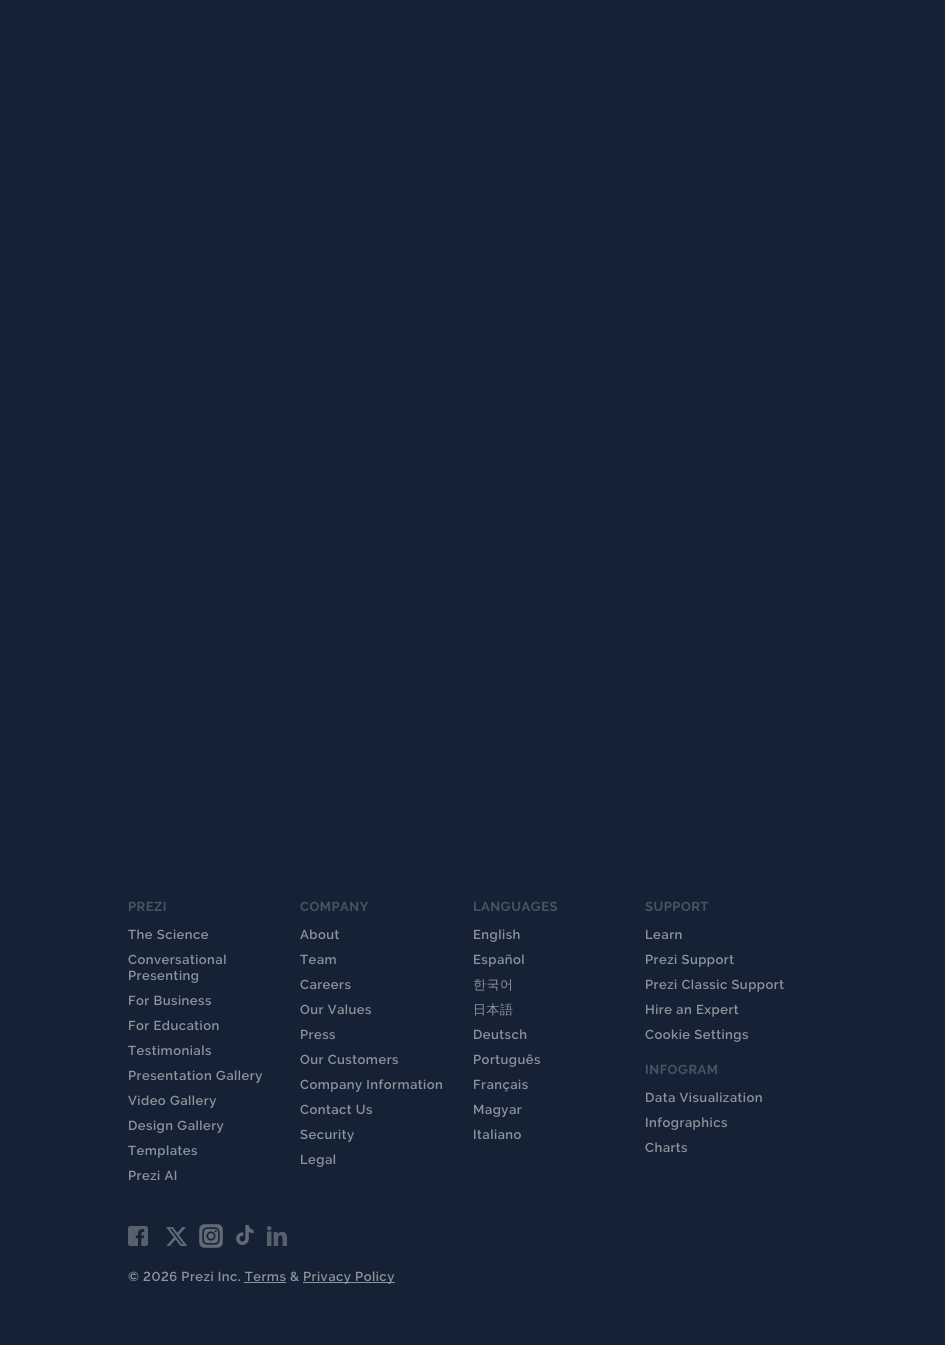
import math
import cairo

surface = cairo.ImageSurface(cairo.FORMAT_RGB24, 945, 1345)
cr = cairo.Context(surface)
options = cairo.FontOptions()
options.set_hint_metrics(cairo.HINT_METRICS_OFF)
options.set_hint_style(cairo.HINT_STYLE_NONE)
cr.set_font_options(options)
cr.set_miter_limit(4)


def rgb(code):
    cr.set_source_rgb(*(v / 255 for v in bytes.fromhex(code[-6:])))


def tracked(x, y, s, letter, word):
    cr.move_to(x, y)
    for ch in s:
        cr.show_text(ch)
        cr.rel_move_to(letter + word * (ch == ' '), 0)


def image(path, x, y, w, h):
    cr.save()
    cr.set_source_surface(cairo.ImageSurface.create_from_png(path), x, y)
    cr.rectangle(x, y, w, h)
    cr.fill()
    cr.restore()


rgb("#152235")
cr.paint()
image("img/1.png", 128, 1226, 20, 20)
image("img/2.png", 166, 1227, 21, 19)
image("img/3.png", 199, 1224, 24, 24)
image("img/4.png", 236, 1225, 18, 20)
image("img/5.png", 267, 1226, 20, 20)
rgb("#8e939c")
cr.rectangle(244, 1282, 42, 1)
cr.fill()
cr.rectangle(303, 1282, 92, 1)
cr.fill()
cr.select_font_face("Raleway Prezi", cairo.FONT_SLANT_NORMAL, cairo.FONT_WEIGHT_BOLD)
cr.set_font_size(13)
rgb("#475262")
tracked(128, 911, "PREZI", 0.5, 0)
cr.select_font_face("Raleway Prezi SemiBold")
rgb("#8e939c")
for x, y, s in [
    (128, 939, "The Science"),
    (128, 964, "Conversational"),
    (128, 980, "Presenting"),
    (128, 1005, "For Business"),
    (128, 1030, "For Education"),
    (128, 1055, "Testimonials"),
    (128, 1080, "Presentation Gallery"),
    (128, 1105, "Video Gallery"),
    (128, 1130, "Design Gallery"),
    (128, 1155, "Templates"),
    (128, 1180, "Prezi AI"),
]:
    tracked(x, y, s, 0.5, 0)
cr.select_font_face("Raleway Prezi", cairo.FONT_SLANT_NORMAL, cairo.FONT_WEIGHT_BOLD)
rgb("#475262")
tracked(300, 911, "COMPANY", 0.5, 0)
cr.select_font_face("Raleway Prezi SemiBold")
rgb("#8e939c")
for x, y, s in [
    (300, 939, "About"),
    (300, 964, "Team"),
    (300, 989, "Careers"),
    (300, 1014, "Our Values"),
    (300, 1039, "Press"),
    (300, 1064, "Our Customers"),
    (300, 1089, "Company Information"),
    (300, 1114, "Contact Us"),
    (300, 1139, "Security"),
    (300, 1164, "Legal"),
]:
    tracked(x, y, s, 0.5, 0)
cr.select_font_face("Raleway Prezi", cairo.FONT_SLANT_NORMAL, cairo.FONT_WEIGHT_BOLD)
rgb("#475262")
tracked(473, 911, "LANGUAGES", 0.5, 0)
cr.select_font_face("Raleway Prezi SemiBold")
rgb("#8e939c")
tracked(473, 939, "English", 0.5, 0)
tracked(473, 964, "Español", 0.5, 0)
cr.select_font_face("WenQuanYi Zen Hei Medium")
tracked(473, 989, "한국어", 0.5, 0)
tracked(473, 1014, "日本語", 0.5, 0)
cr.select_font_face("Raleway Prezi SemiBold")
for x, y, s in [
    (473, 1039, "Deutsch"),
    (473, 1064, "Português"),
    (473, 1089, "Français"),
    (473, 1114, "Magyar"),
    (473, 1139, "Italiano"),
]:
    tracked(x, y, s, 0.5, 0)
cr.select_font_face("Raleway Prezi", cairo.FONT_SLANT_NORMAL, cairo.FONT_WEIGHT_BOLD)
rgb("#475262")
tracked(645, 911, "SUPPORT", 0.5, 0)
cr.select_font_face("Raleway Prezi SemiBold")
rgb("#8e939c")
for x, y, s in [
    (645, 939, "Learn"),
    (645, 964, "Prezi Support"),
    (645, 989, "Prezi Classic Support"),
    (645, 1014, "Hire an Expert"),
    (645, 1039, "Cookie Settings"),
]:
    tracked(x, y, s, 0.5, 0)
cr.select_font_face("Raleway Prezi", cairo.FONT_SLANT_NORMAL, cairo.FONT_WEIGHT_BOLD)
rgb("#475262")
tracked(645, 1074, "INFOGRAM", 0.5, 0)
cr.select_font_face("Raleway Prezi SemiBold")
rgb("#8e939c")
for x, y, s in [
    (645, 1102, "Data Visualization"),
    (645, 1127, "Infographics"),
    (645, 1152, "Charts"),
    (128, 1281, "© 2026 Prezi Inc. Terms &"),
    (303, 1281, "Privacy Policy"),
]:
    tracked(x, y, s, 0.5, 0)
surface.write_to_png("page.png")
